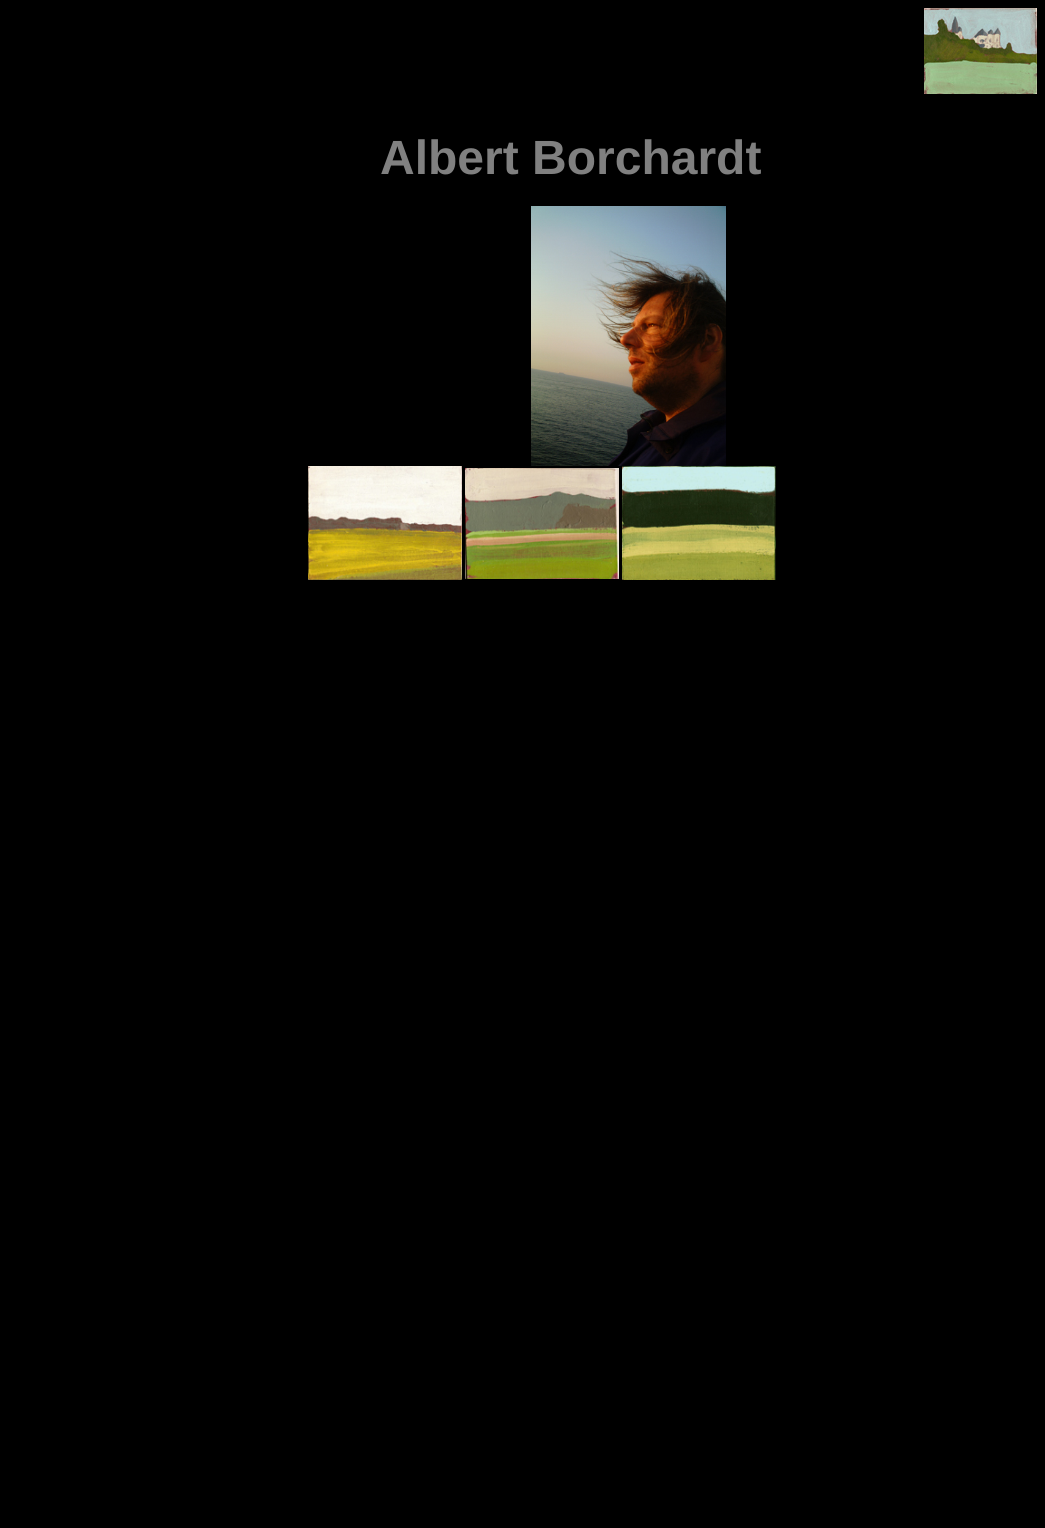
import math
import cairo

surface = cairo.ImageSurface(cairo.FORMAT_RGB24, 1045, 1528)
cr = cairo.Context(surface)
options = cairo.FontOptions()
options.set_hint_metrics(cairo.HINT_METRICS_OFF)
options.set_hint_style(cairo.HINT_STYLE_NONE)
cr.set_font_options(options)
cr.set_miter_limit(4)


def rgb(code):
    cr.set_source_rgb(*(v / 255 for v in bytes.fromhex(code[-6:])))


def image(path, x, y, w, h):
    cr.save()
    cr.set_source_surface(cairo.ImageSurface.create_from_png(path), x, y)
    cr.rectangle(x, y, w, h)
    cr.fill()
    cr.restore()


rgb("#000000")
cr.paint()
image("img/1.png", 924, 8, 113, 86)
image("img/2.png", 531, 206, 195, 260)
image("img/3.png", 308, 466, 154, 114)
image("img/4.png", 465, 468, 154, 111)
image("img/5.png", 622, 466, 154, 114)
cr.select_font_face("Liberation Sans", cairo.FONT_SLANT_NORMAL, cairo.FONT_WEIGHT_BOLD)
cr.set_font_size(48)
rgb("#808080")
cr.move_to(380, 174)
cr.show_text("Albert Borchardt")
surface.write_to_png("page.png")
